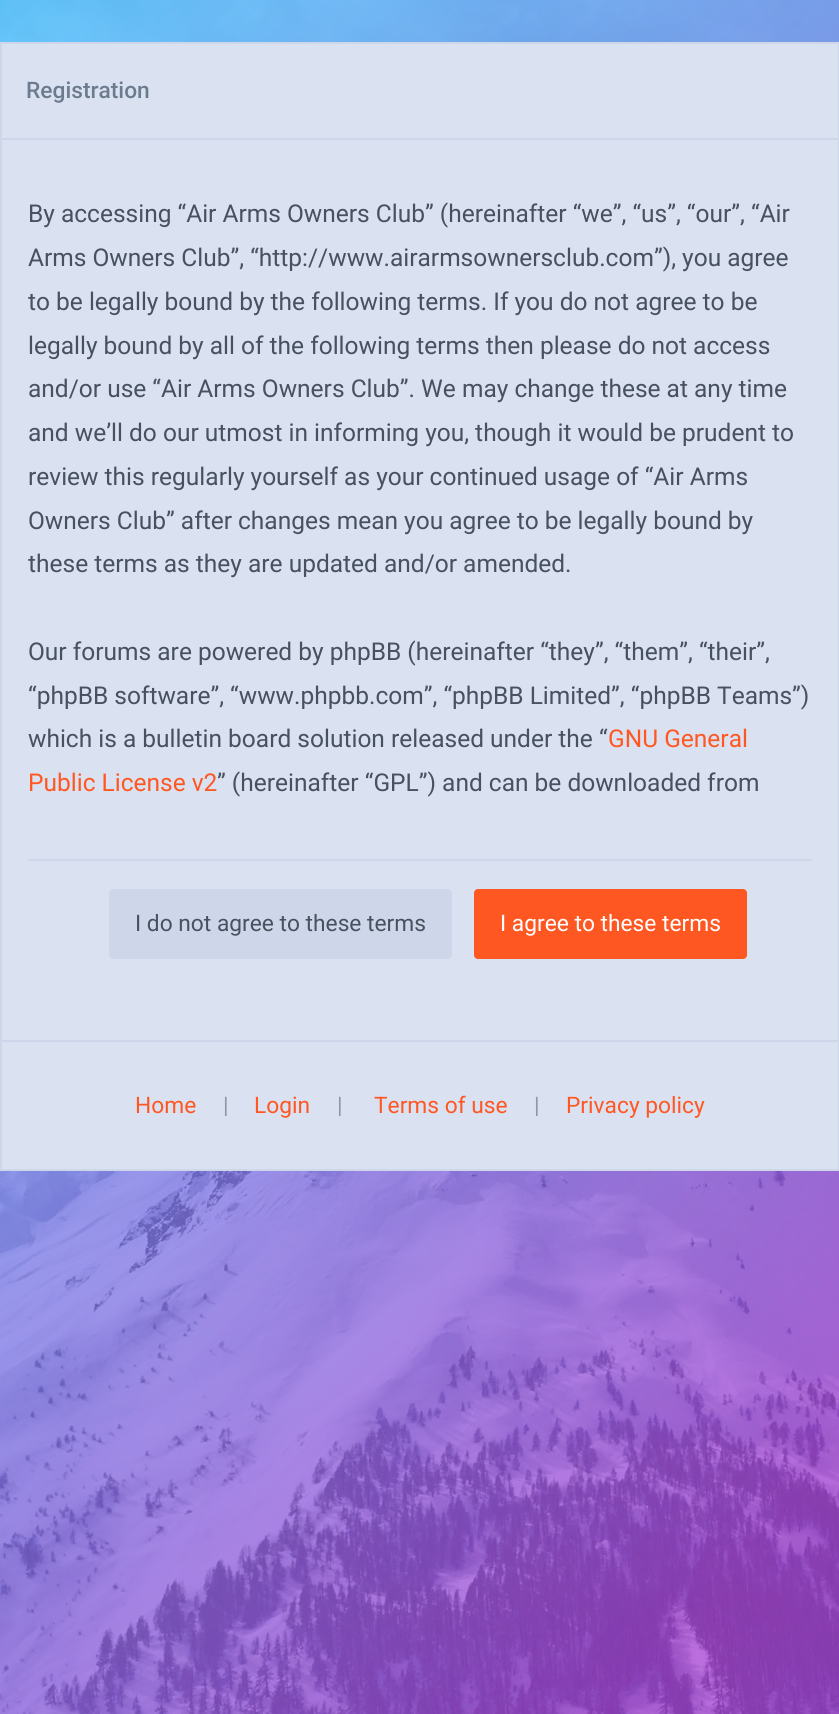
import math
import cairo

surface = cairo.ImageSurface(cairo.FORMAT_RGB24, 839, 1714)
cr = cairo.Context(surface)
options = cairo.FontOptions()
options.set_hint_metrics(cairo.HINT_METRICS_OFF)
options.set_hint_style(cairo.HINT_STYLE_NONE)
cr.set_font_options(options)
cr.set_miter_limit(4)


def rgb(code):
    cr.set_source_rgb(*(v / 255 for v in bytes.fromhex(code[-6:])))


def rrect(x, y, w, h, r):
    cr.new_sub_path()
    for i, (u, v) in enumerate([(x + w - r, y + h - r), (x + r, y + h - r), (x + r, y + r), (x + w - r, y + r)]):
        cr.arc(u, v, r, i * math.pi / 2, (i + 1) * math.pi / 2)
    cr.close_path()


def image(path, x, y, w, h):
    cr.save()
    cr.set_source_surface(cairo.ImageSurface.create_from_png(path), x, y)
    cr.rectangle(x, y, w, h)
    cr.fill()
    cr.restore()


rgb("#ffffff")
cr.paint()
image("img/1.png", 0, 0, 839, 1714)
rgb("#dae2f2")
cr.rectangle(1, 43, 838, 1127)
cr.fill_preserve()
rgb("#ced7ea")
cr.stroke()
cr.rectangle(0, 138, 839, 2)
cr.fill()
cr.rectangle(28, 859, 784, 2)
cr.fill()
rrect(109, 889, 343, 70, 4)
cr.fill()
rgb("#ff5722")
rrect(474, 889, 273, 70, 4)
cr.fill()
rgb("#ced7ea")
cr.rectangle(2, 1040, 836, 2)
cr.fill()
cr.select_font_face("Roboto Medium")
cr.set_font_size(22.75)
rgb("#6d7b8e")
cr.move_to(26, 98)
cr.show_text("Registration")
cr.select_font_face("Roboto")
cr.set_font_size(24.5)
rgb("#48515e")
for x, y, s in [
    (28, 222, "By accessing “Air Arms Owners Club” (hereinafter “we”, “us”, “our”, “Air"),
    (28, 266, "Arms Owners Club”, “http://www.airarmsownersclub.com”), you agree"),
    (28, 310, "to be legally bound by the following terms. If you do not agree to be"),
    (28, 354, "legally bound by all of the following terms then please do not access"),
    (28, 397, "and/or use “Air Arms Owners Club”. We may change these at any time"),
    (28, 441, "and we’ll do our utmost in informing you, though it would be prudent to"),
    (28, 485, "review this regularly yourself as your continued usage of “Air Arms"),
    (28, 529, "Owners Club” after changes mean you agree to be legally bound by"),
    (28, 572, "these terms as they are updated and/or amended."),
    (28, 660, "Our forums are powered by phpBB (hereinafter “they”, “them”, “their”,"),
    (28, 704, "“phpBB software”, “www.phpbb.com”, “phpBB Limited”, “phpBB Teams”)"),
    (28, 747, "which is a bulletin board solution released under the “"),
]:
    cr.move_to(x, y)
    cr.show_text(s)
rgb("#ff5722")
cr.move_to(608, 747)
cr.show_text("GNU General")
cr.move_to(28, 791)
cr.show_text("Public License v2")
rgb("#48515e")
cr.move_to(217, 791)
cr.show_text("” (hereinafter “GPL”) and can be downloaded from")
cr.set_font_size(22.75)
cr.move_to(135, 931)
cr.show_text("I do not agree to these terms")
rgb("#ffffff")
cr.move_to(500, 931)
cr.show_text("I agree to these terms")
rgb("#ff5722")
cr.move_to(135, 1113)
cr.show_text("Home")
rgb("#8a98aa")
cr.move_to(223, 1113)
cr.show_text("|")
rgb("#ff5722")
cr.move_to(254, 1113)
cr.show_text("Login")
rgb("#8a98aa")
cr.move_to(337, 1113)
cr.show_text("|")
rgb("#ff5722")
cr.move_to(374, 1113)
cr.show_text("Terms of use")
rgb("#8a98aa")
cr.move_to(534, 1113)
cr.show_text("|")
rgb("#ff5722")
cr.move_to(566, 1113)
cr.show_text("Privacy policy")
surface.write_to_png("page.png")
